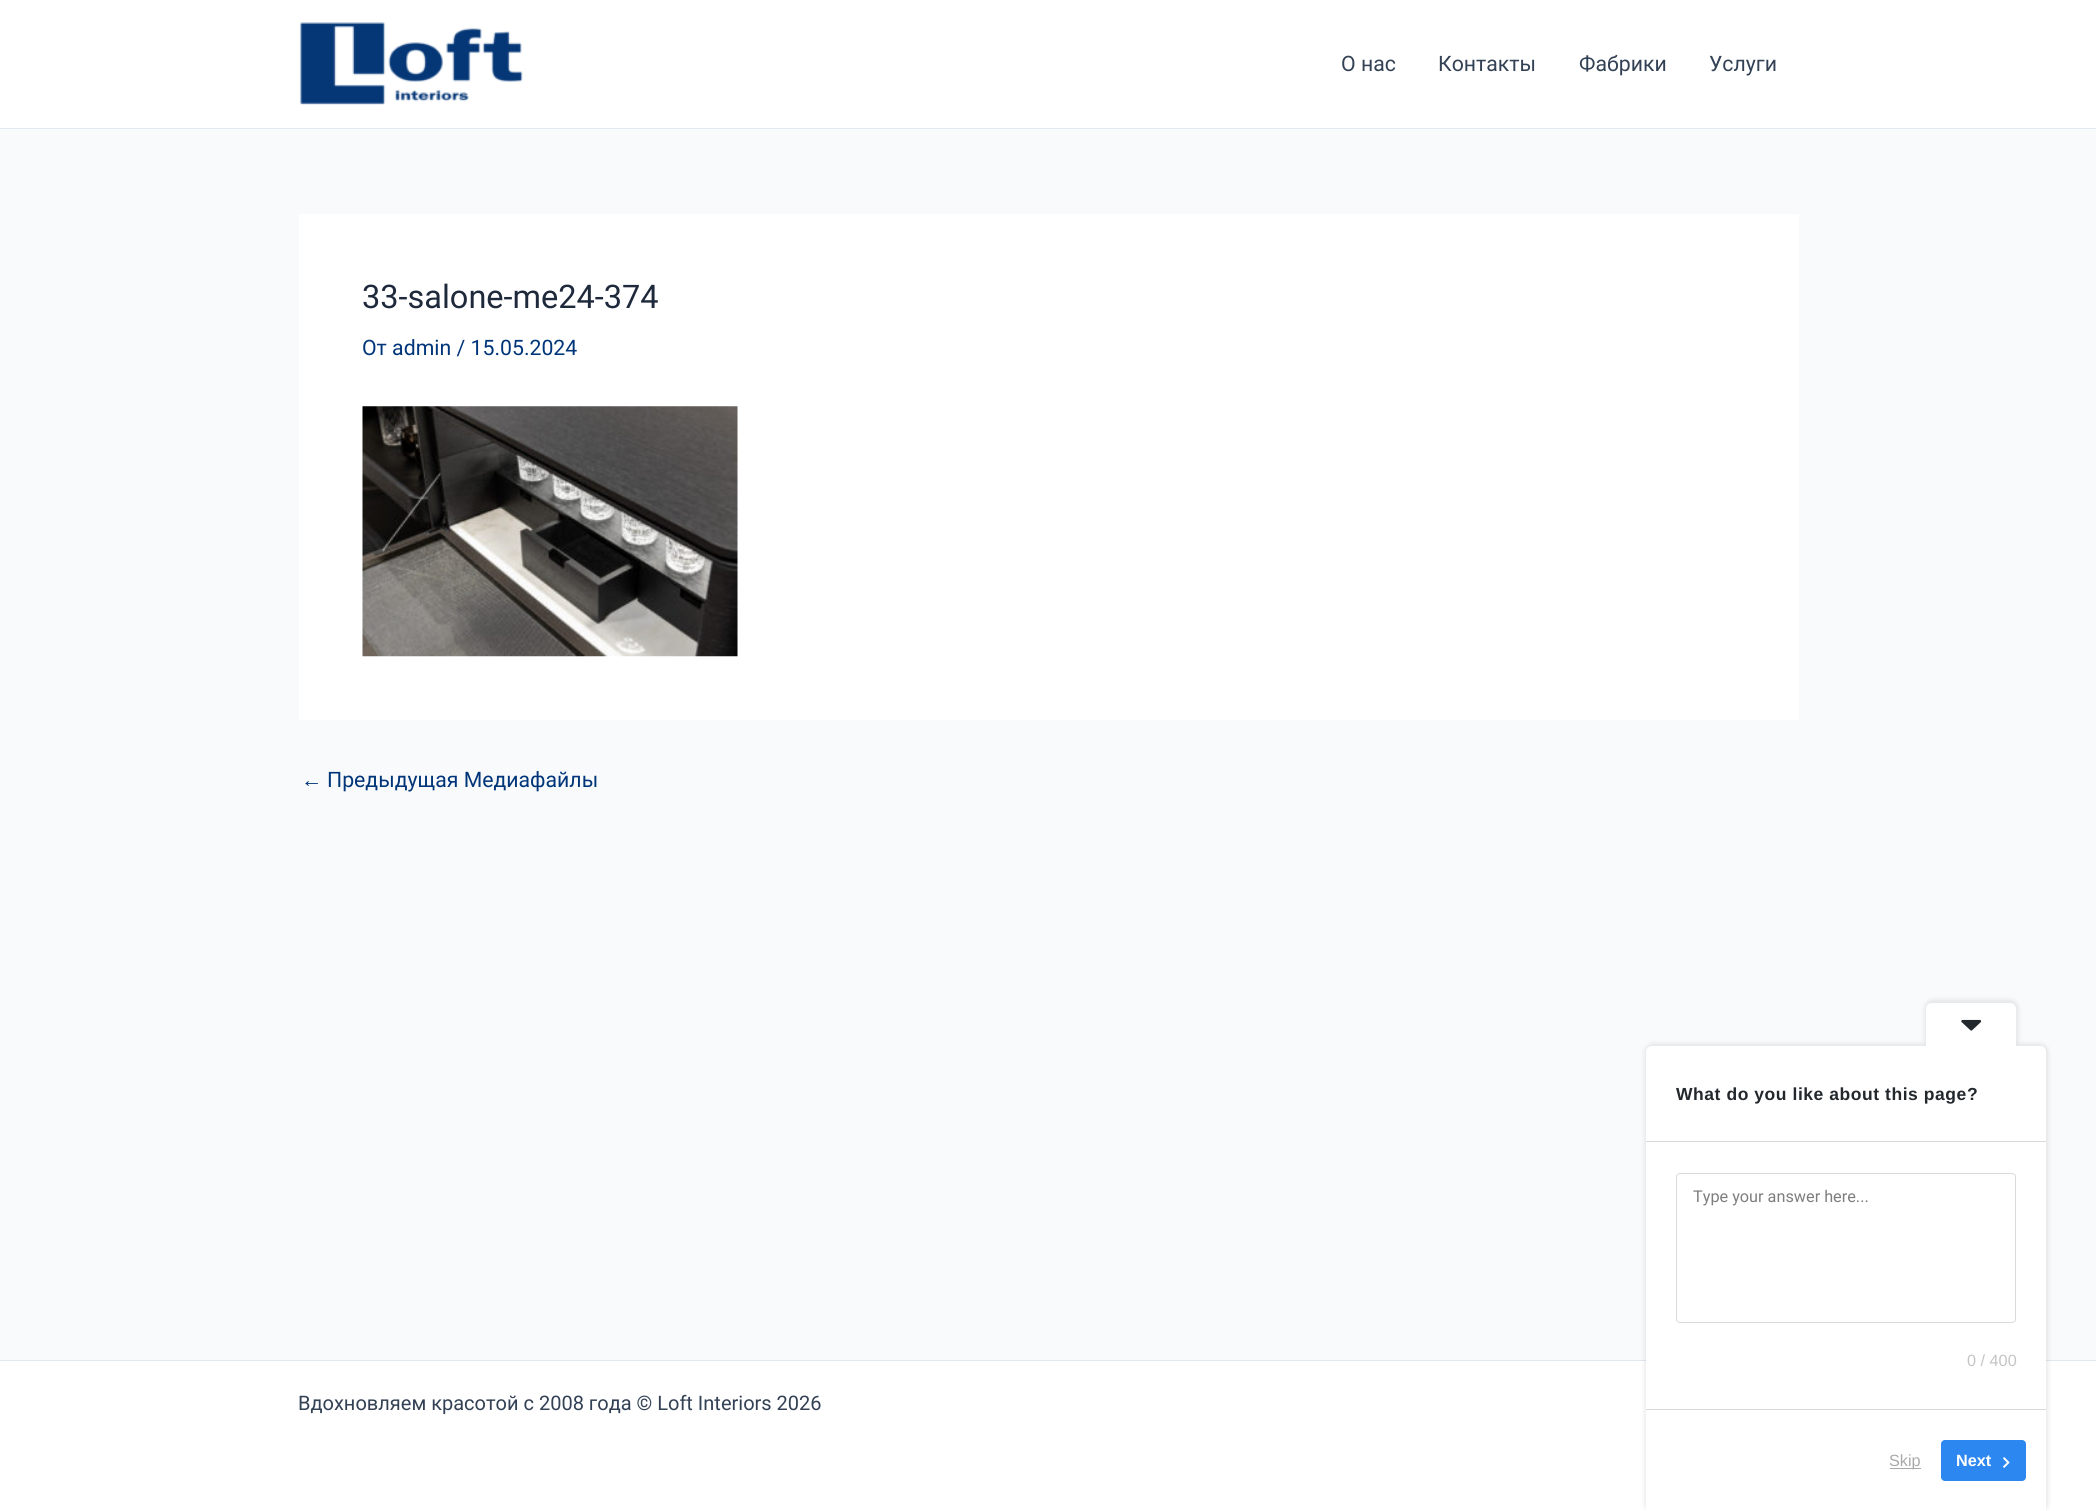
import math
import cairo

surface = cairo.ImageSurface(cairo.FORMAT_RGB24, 2096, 1511)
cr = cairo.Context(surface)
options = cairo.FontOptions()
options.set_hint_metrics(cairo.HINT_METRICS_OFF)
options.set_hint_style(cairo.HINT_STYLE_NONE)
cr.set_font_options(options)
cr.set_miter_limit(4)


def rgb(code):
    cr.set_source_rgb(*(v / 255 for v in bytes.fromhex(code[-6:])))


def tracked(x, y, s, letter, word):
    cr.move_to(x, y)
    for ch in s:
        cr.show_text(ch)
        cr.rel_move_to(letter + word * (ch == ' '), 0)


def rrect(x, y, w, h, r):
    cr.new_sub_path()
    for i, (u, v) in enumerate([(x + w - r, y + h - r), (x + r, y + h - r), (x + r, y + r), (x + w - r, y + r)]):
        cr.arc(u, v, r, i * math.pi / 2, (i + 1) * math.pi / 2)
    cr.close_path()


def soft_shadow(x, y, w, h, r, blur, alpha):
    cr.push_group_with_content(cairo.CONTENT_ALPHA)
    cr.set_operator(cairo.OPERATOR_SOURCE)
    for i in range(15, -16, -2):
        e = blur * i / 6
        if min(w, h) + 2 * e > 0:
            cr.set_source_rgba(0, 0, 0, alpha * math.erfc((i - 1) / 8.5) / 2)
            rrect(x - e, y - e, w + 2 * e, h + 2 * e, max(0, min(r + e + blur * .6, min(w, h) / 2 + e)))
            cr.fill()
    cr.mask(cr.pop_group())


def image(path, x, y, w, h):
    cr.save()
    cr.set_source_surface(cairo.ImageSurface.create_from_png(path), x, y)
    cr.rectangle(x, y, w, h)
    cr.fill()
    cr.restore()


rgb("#f9fafb")
cr.paint()
rgb("#ffffff")
cr.rectangle(0, 0, 2096, 128)
cr.fill()
rgb("#e2e8f0")
cr.rectangle(0, 128, 2096, 1)
cr.fill()
image("img/1.png", 299, 22, 224, 83)
rgb("#ffffff")
cr.rectangle(299, 214, 1500, 506)
cr.fill()
image("img/2.png", 362, 406, 376, 251)
cr.rectangle(0, 1361, 2096, 150)
cr.fill()
rgb("#e2e8f0")
cr.rectangle(0, 1360, 2096, 1)
cr.fill()
rgb("#000000")
soft_shadow(1644, 1043, 405, 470, 9, 2, 0.07)
rgb("#ffffff")
cr.new_path()
cr.move_to(1652, 1046)
cr.line_to(2040, 1046)
cr.curve_to(2043.5, 1046, 2046, 1048.5, 2046, 1052)
cr.line_to(2046, 1511)
cr.line_to(1646, 1511)
cr.line_to(1646, 1052)
cr.curve_to(1646, 1048.5, 1648.5, 1046, 1652, 1046)
cr.close_path()
cr.fill()
cr.save()
cr.new_path()
cr.move_to(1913, 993.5)
cr.line_to(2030, 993.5)
cr.line_to(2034, 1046)
cr.line_to(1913, 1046)
cr.close_path()
cr.clip()
rgb("#000000")
soft_shadow(1924, 999, 95, 49, 9, 2, 0.07)
cr.restore()
cr.new_path()
cr.move_to(1932, 1003)
cr.line_to(2010, 1003)
cr.curve_to(2013.5, 1003, 2016, 1005.5, 2016, 1009)
cr.line_to(2016, 1046)
cr.line_to(1926, 1046)
cr.line_to(1926, 1009)
cr.curve_to(1926, 1005.5, 1928.5, 1003, 1932, 1003)
cr.close_path()
cr.fill()
image("img/3.png", 1961, 1019, 20, 12)
rgb("#d9d9d9")
cr.rectangle(1646, 1141, 400, 1)
cr.fill()
cr.rectangle(1646, 1409, 400, 1)
cr.fill()
rrect(1676.5, 1173.5, 339, 149, 3.5)
rgb("#dadada")
cr.set_line_width(1)
cr.stroke()
rgb("#aaaaaa")
cr.rectangle(1890, 1468, 31, 1)
cr.fill()
rgb("#2d87f1")
rrect(1941, 1440, 85, 41, 4)
cr.fill()
image("img/4.png", 2003, 1457, 7, 11)
cr.select_font_face("Roboto")
cr.set_font_size(21.25)
rgb("#334155")
for x, y, s in [
    (1341, 71, "О нас"),
    (1438, 71, "Контакты"),
    (1579, 71, "Фабрики"),
    (1709, 71, "Услуги"),
]:
    cr.move_to(x, y)
    cr.show_text(s)
cr.set_font_size(32.5)
rgb("#1e293b")
cr.move_to(362, 308)
cr.show_text("33-salone-me24-374")
cr.set_font_size(21.25)
rgb("#003579")
cr.move_to(362, 355)
cr.show_text("От admin / 15.05.2024")
cr.select_font_face("Liberation Sans")
cr.move_to(301, 787)
cr.show_text("←")
cr.select_font_face("Roboto")
cr.move_to(327, 787)
cr.show_text("Предыдущая Медиафайлы")
cr.set_font_size(20)
rgb("#334155")
cr.move_to(298, 1410)
cr.show_text("Вдохновляем красотой с 2008 года © Loft Interiors 2026")
cr.select_font_face("Liberation Sans", cairo.FONT_SLANT_NORMAL, cairo.FONT_WEIGHT_BOLD)
cr.set_font_size(17.5)
rgb("#23282d")
tracked(1676, 1100, "What do you like about this page?", 0.55, 0)
cr.select_font_face("Roboto")
cr.set_font_size(16.25)
rgb("#7e7e7e")
cr.move_to(1693, 1202)
cr.show_text("Type your answer here...")
cr.select_font_face("Liberation Sans")
rgb("#c4c4c4")
cr.move_to(1967, 1366)
cr.show_text("0 / 400")
rgb("#aaaaaa")
cr.move_to(1889, 1466)
cr.show_text("Skip")
cr.select_font_face("Liberation Sans", cairo.FONT_SLANT_NORMAL, cairo.FONT_WEIGHT_BOLD)
rgb("#ffffff")
cr.move_to(1956, 1466)
cr.show_text("Next")
surface.write_to_png("page.png")
